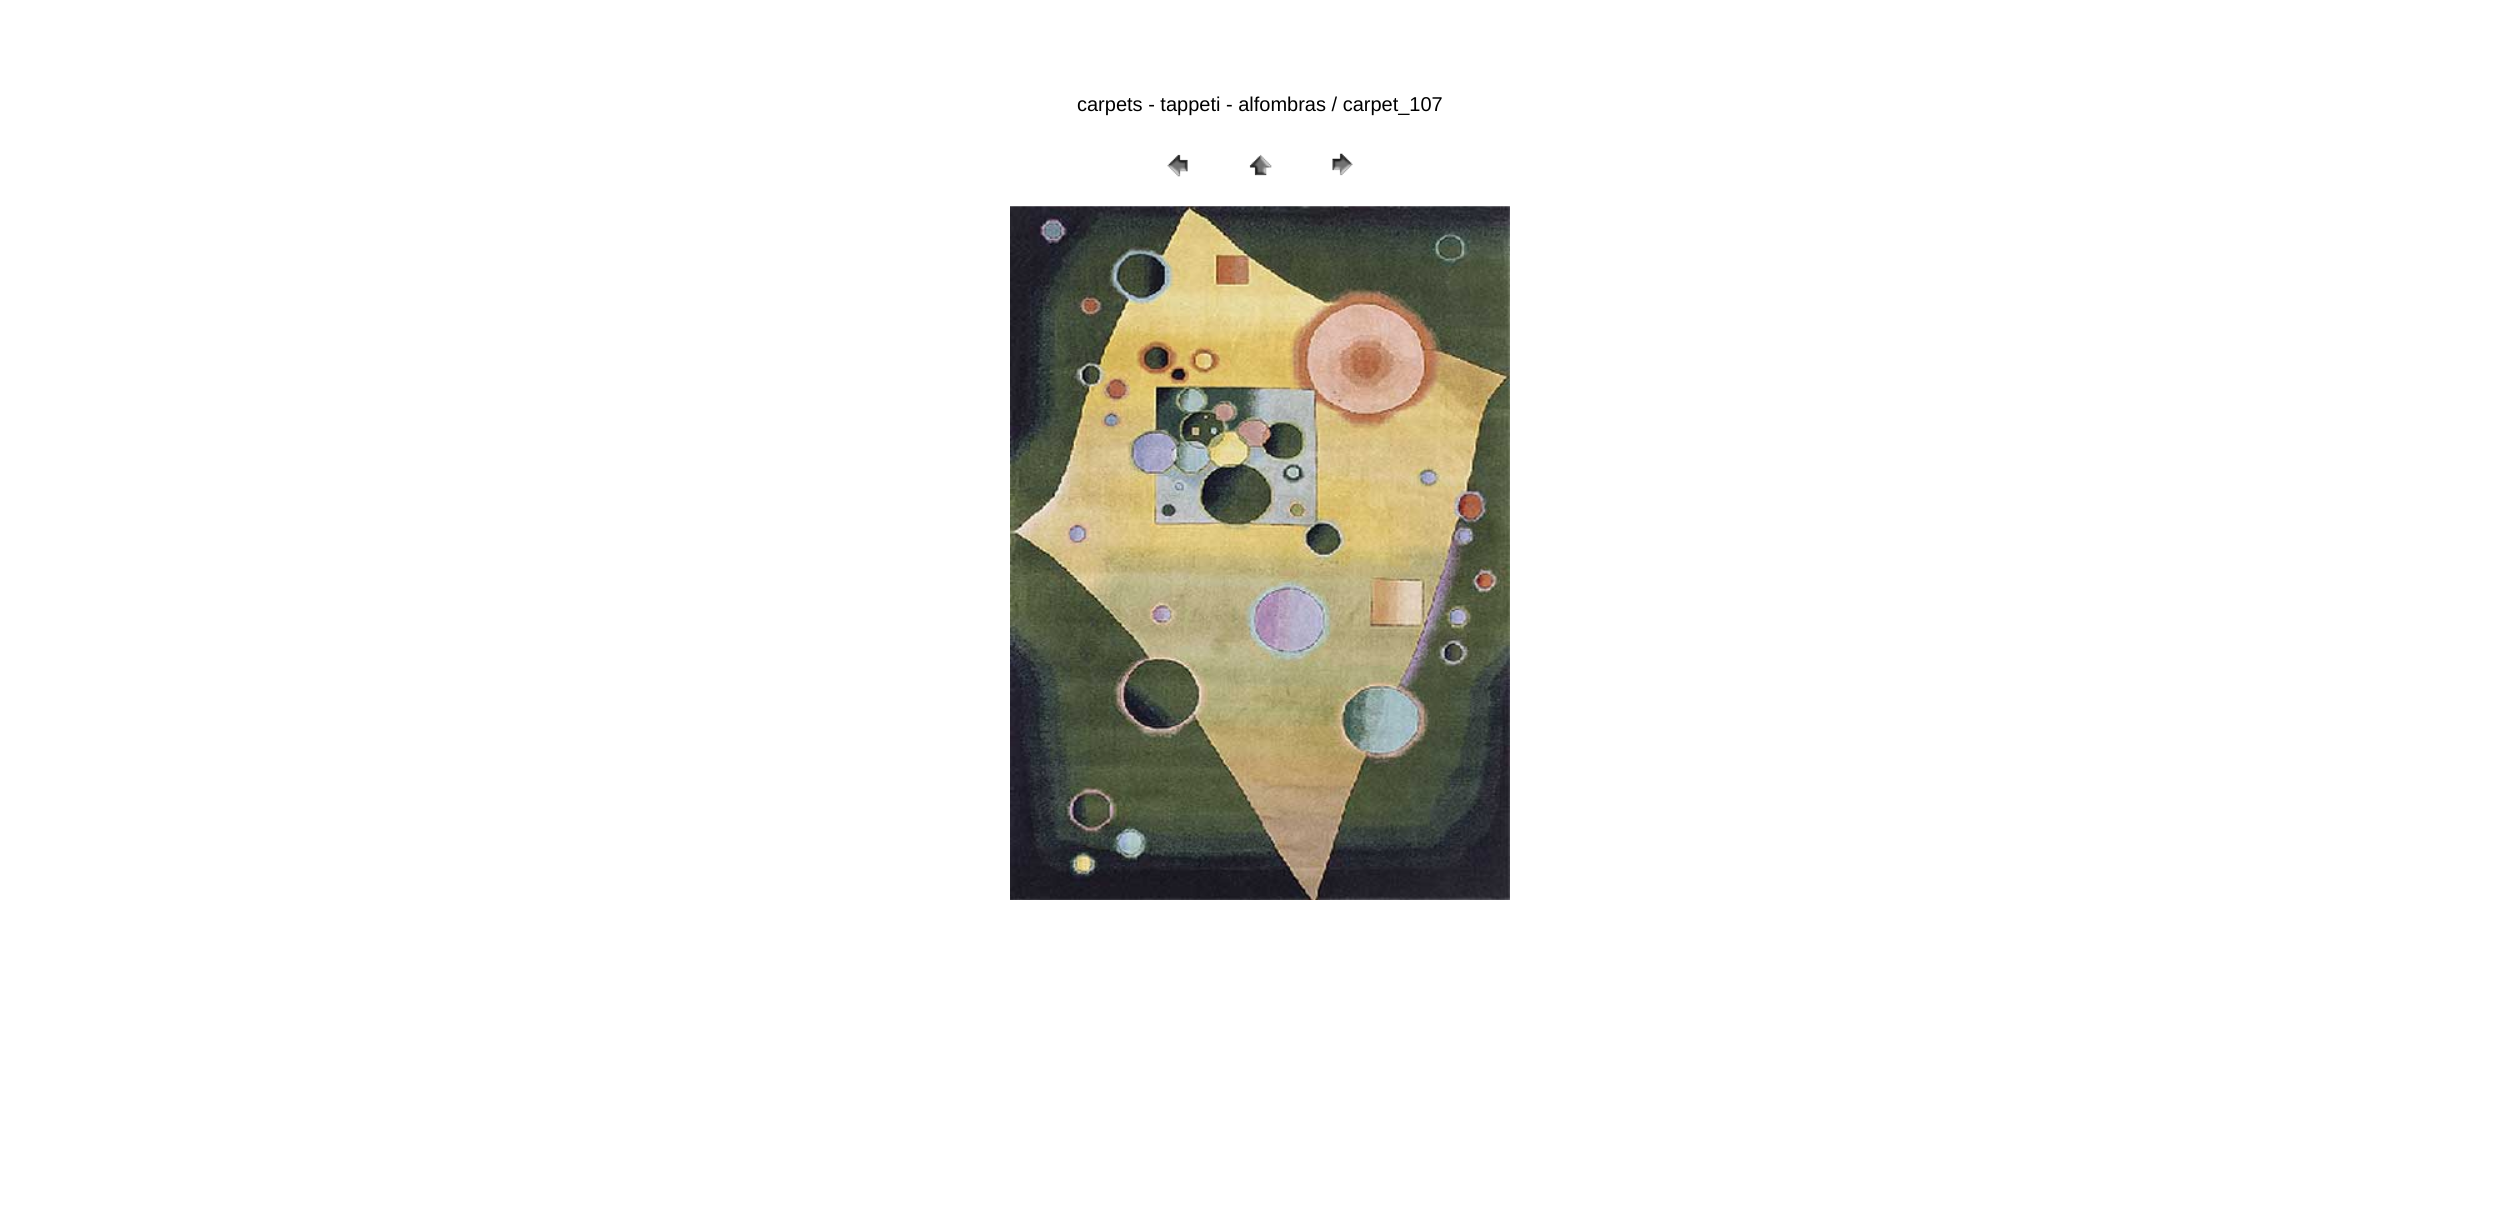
import math
import cairo

surface = cairo.ImageSurface(cairo.FORMAT_RGB24, 2518, 1216)
cr = cairo.Context(surface)
options = cairo.FontOptions()
options.set_hint_metrics(cairo.HINT_METRICS_OFF)
options.set_hint_style(cairo.HINT_STYLE_NONE)
cr.set_font_options(options)
cr.set_miter_limit(4)


def rgb(code):
    cr.set_source_rgb(*(v / 255 for v in bytes.fromhex(code[-6:])))


def image(path, x, y, w, h):
    cr.save()
    cr.set_source_surface(cairo.ImageSurface.create_from_png(path), x, y)
    cr.rectangle(x, y, w, h)
    cr.fill()
    cr.restore()


rgb("#ffffff")
cr.paint()
image("img/1.png", 1167, 154, 21, 23)
image("img/2.png", 1249, 154, 23, 22)
image("img/3.png", 1332, 153, 21, 23)
image("img/4.png", 1010, 206, 500, 694)
cr.select_font_face("Liberation Sans")
cr.set_font_size(20)
rgb("#000000")
cr.move_to(1077, 111)
cr.show_text("carpets - tappeti - alfombras / carpet_107")
surface.write_to_png("page.png")
